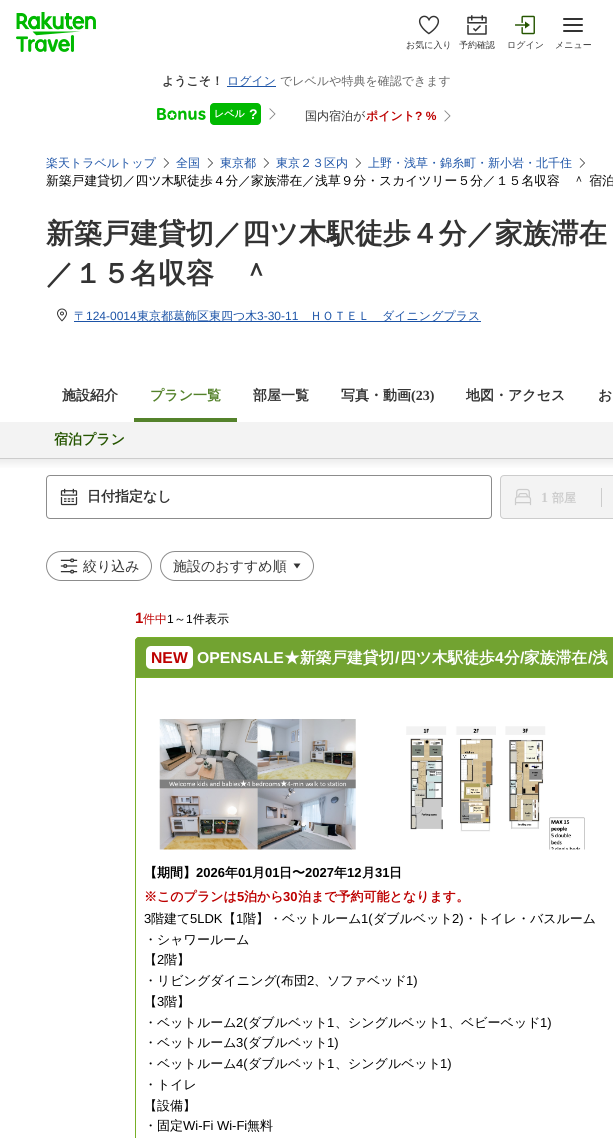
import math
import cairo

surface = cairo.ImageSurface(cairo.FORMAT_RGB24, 613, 1138)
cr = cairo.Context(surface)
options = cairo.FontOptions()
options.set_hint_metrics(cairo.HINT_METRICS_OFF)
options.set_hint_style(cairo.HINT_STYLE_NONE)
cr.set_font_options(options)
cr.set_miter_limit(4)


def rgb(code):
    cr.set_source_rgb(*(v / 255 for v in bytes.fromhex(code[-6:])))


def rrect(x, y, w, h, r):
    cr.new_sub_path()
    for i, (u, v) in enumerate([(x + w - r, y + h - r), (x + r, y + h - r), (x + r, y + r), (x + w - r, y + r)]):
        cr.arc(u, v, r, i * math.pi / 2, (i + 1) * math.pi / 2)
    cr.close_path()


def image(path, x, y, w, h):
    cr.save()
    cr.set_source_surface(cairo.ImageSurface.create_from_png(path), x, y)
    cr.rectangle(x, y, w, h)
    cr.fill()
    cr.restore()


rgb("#ffffff")
cr.paint()
image("img/1.png", 16, 12, 80, 40)
image("img/2.png", 418, 15, 22, 20)
image("img/3.png", 467, 15, 20, 20)
image("img/4.png", 515, 15, 20, 20)
image("img/5.png", 563, 18, 20, 14)
rgb("#1d54a7")
cr.rectangle(227, 86, 49, 1)
cr.fill()
image("img/6.png", 157, 108, 49, 12)
rgb("#00b900")
rrect(210, 103, 51, 22, 4)
cr.fill()
image("img/7.png", 269, 108, 7, 12)
image("img/7.png", 444, 110, 7, 12)
image("img/8.png", 163, 158, 6, 10)
image("img/8.png", 207, 158, 6, 10)
image("img/8.png", 263, 158, 6, 10)
image("img/8.png", 355, 158, 6, 10)
image("img/8.png", 579, 158, 6, 10)
image("img/9.png", 57, 308, 10, 14)
rgb("#1d54a7")
cr.rectangle(74, 321, 407, 1)
cr.fill()
rgb("#54822b")
cr.rectangle(134, 418, 103, 4)
cr.fill()
gradient = cairo.LinearGradient(610, 469, 610, 459)
gradient.add_color_stop_rgba(0, 1, 1, 1, 1)
gradient.add_color_stop_rgba(1, 0.929, 0.929, 0.929, 1)
cr.set_source(gradient)
cr.rectangle(0, 459, 613, 9)
cr.fill()
rgb("#f3f3f3")
cr.rectangle(0, 422, 613, 36)
cr.fill()
rgb("#cccccc")
cr.rectangle(0, 458, 613, 1)
cr.fill()
rrect(46.5, 475.5, 445, 43, 3.5)
rgb("#8c8c8c")
cr.set_line_width(1)
cr.stroke()
image("img/10.png", 60, 488, 18, 18)
rgb("#f3f3f3")
rrect(500.5, 475.5, 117, 43, 3.5)
cr.fill_preserve()
rgb("#cccccc")
cr.stroke()
cr.rectangle(601, 488, 1, 19)
cr.fill()
image("img/11.png", 514, 488, 18, 18)
rrect(46.5, 551.5, 105, 29, 14.5)
rgb("#8c8c8c")
cr.stroke()
image("img/12.png", 60, 558, 18, 16)
rrect(160.5, 551.5, 153, 29, 14.5)
cr.stroke()
rgb("#333333")
cr.set_fill_rule(cairo.FILL_RULE_EVEN_ODD)
cr.new_path()
cr.move_to(297, 568.5)
cr.line_to(293.5, 563.5)
cr.line_to(300.5, 563.5)
cr.close_path()
cr.fill()
rgb("#72a331")
cr.new_path()
cr.move_to(139, 637)
cr.line_to(613, 637)
cr.curve_to(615, 637, 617, 639, 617, 641)
cr.line_to(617, 677)
cr.line_to(135, 677)
cr.line_to(135, 641)
cr.curve_to(135, 639, 137, 637, 139, 637)
cr.close_path()
cr.fill()
rgb("#77af27")
cr.new_path()
cr.move_to(139, 637)
cr.line_to(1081, 637)
cr.curve_to(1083, 637, 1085, 639, 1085, 641)
cr.line_to(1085, 677)
cr.line_to(135, 677)
cr.line_to(135, 641)
cr.curve_to(135, 639, 137, 637, 139, 637)
cr.close_path()
cr.move_to(139, 638)
cr.line_to(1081, 638)
cr.curve_to(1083, 638, 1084, 639, 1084, 641)
cr.line_to(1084, 677)
cr.line_to(136, 677)
cr.line_to(136, 641)
cr.curve_to(136, 639, 137, 638, 139, 638)
cr.close_path()
cr.fill()
rgb("#ffffff")
rrect(146, 646, 47, 23, 5)
cr.fill()
cr.rectangle(135.5, 677.5, 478, 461)
rgb("#77af27")
cr.stroke()
image("img/13.png", 159, 719, 197, 131)
image("img/14.png", 406, 726, 179, 124)
cr.select_font_face("WenQuanYi Zen Hei Medium")
cr.set_font_size(9)
rgb("#333333")
for x, y, s in [
    (406, 48, "お気に入り"),
    (459, 48, "予約確認"),
    (507, 48, "ログイン"),
    (555, 48, "メニュー"),
]:
    cr.move_to(x, y)
    cr.show_text(s)
cr.select_font_face("WenQuanYi Zen Hei", cairo.FONT_SLANT_NORMAL, cairo.FONT_WEIGHT_BOLD)
cr.set_font_size(12)
cr.move_to(162, 85)
cr.show_text("ようこそ！")
cr.select_font_face("WenQuanYi Zen Hei Medium")
rgb("#1d54a7")
cr.move_to(227, 85)
cr.show_text("ログイン")
rgb("#686868")
cr.move_to(280, 85)
cr.show_text("でレベルや特典を確認できます")
cr.select_font_face("WenQuanYi Zen Hei", cairo.FONT_SLANT_NORMAL, cairo.FONT_WEIGHT_BOLD)
cr.set_font_size(10)
rgb("#ffffff")
cr.move_to(214, 117)
cr.show_text("レベル")
cr.select_font_face("Liberation Sans", cairo.FONT_SLANT_NORMAL, cairo.FONT_WEIGHT_BOLD)
cr.set_font_size(14)
cr.move_to(249, 119)
cr.show_text("?")
cr.select_font_face("WenQuanYi Zen Hei Medium")
cr.set_font_size(12)
rgb("#333333")
cr.move_to(305, 120)
cr.show_text("国内宿泊が")
cr.select_font_face("WenQuanYi Zen Hei", cairo.FONT_SLANT_NORMAL, cairo.FONT_WEIGHT_BOLD)
rgb("#bd0000")
cr.move_to(366, 120)
cr.show_text("ポイント")
cr.select_font_face("Liberation Sans", cairo.FONT_SLANT_NORMAL, cairo.FONT_WEIGHT_BOLD)
cr.move_to(415, 120)
cr.show_text("? %")
cr.select_font_face("WenQuanYi Zen Hei Medium")
rgb("#1d54a7")
for x, y, s in [
    (46, 167, "楽天トラベルトップ"),
    (176, 167, "全国"),
    (220, 167, "東京都"),
    (276, 167, "東京２３区内"),
    (368, 167, "上野・浅草・錦糸町・新小岩・北千住"),
]:
    cr.move_to(x, y)
    cr.show_text(s)
cr.set_font_size(12.8)
rgb("#000000")
cr.move_to(46, 185)
cr.show_text("新築戸建貸切／四ツ木駅徒歩４分／家族滞在／浅草９分・スカイツリー５分／１５名収容　＾ 宿泊")
cr.select_font_face("WenQuanYi Zen Hei", cairo.FONT_SLANT_NORMAL, cairo.FONT_WEIGHT_BOLD)
cr.set_font_size(28)
rgb("#333333")
cr.move_to(46, 243)
cr.show_text("新築戸建貸切／四ツ木駅徒歩４分／家族滞在")
cr.move_to(46, 283)
cr.show_text("／１５名収容　＾")
cr.select_font_face("WenQuanYi Zen Hei Medium")
cr.set_font_size(12)
rgb("#1d54a7")
cr.move_to(74, 320)
cr.show_text("〒")
cr.select_font_face("Liberation Sans")
cr.move_to(86, 320)
cr.show_text("124-0014")
cr.select_font_face("WenQuanYi Zen Hei Medium")
cr.move_to(137, 320)
cr.show_text("東京都葛飾区東四つ木")
cr.select_font_face("Liberation Sans")
cr.move_to(257, 320)
cr.show_text("3-30-11")
cr.select_font_face("WenQuanYi Zen Hei Medium")
cr.move_to(310, 320)
cr.show_text("ＨＯＴＥＬ　ダイニングプラス")
cr.select_font_face("WenQuanYi Zen Hei", cairo.FONT_SLANT_NORMAL, cairo.FONT_WEIGHT_BOLD)
cr.set_font_size(14)
rgb("#333333")
cr.move_to(62, 400)
cr.show_text("施設紹介")
rgb("#54822b")
cr.move_to(150, 400)
cr.show_text("プラン一覧")
rgb("#333333")
cr.move_to(253, 400)
cr.show_text("部屋一覧")
cr.move_to(341, 400)
cr.show_text("写真・動画")
cr.select_font_face("Liberation Serif", cairo.FONT_SLANT_NORMAL, cairo.FONT_WEIGHT_BOLD)
cr.move_to(411, 400)
cr.show_text("(23)")
cr.select_font_face("WenQuanYi Zen Hei", cairo.FONT_SLANT_NORMAL, cairo.FONT_WEIGHT_BOLD)
cr.move_to(466, 400)
cr.show_text("地図・アクセス")
cr.move_to(598, 400)
cr.show_text("お")
rgb("#255500")
cr.move_to(54, 444)
cr.show_text("宿泊プラン")
rgb("#333333")
cr.move_to(87, 501)
cr.show_text("日付指定なし")
cr.select_font_face("Liberation Serif", cairo.FONT_SLANT_NORMAL, cairo.FONT_WEIGHT_BOLD)
rgb("#cccccc")
cr.move_to(541, 502)
cr.show_text("1")
cr.select_font_face("WenQuanYi Zen Hei", cairo.FONT_SLANT_NORMAL, cairo.FONT_WEIGHT_BOLD)
cr.set_font_size(12)
cr.move_to(552, 502)
cr.show_text("部屋")
cr.select_font_face("WenQuanYi Zen Hei Medium")
cr.set_font_size(14)
rgb("#333333")
cr.move_to(83, 571)
cr.show_text("絞り込み")
cr.move_to(173, 571)
cr.show_text("施設のおすすめ順")
cr.select_font_face("Liberation Sans", cairo.FONT_SLANT_NORMAL, cairo.FONT_WEIGHT_BOLD)
cr.set_font_size(15)
rgb("#bd0000")
cr.move_to(135, 623)
cr.show_text("1")
cr.select_font_face("WenQuanYi Zen Hei Medium")
cr.set_font_size(12)
cr.move_to(143, 623)
cr.show_text("件中")
cr.select_font_face("Liberation Sans")
rgb("#000000")
cr.move_to(167, 623)
cr.show_text("1")
cr.select_font_face("WenQuanYi Zen Hei Medium")
cr.move_to(174, 623)
cr.show_text("～")
cr.select_font_face("Liberation Sans")
cr.move_to(186, 623)
cr.show_text("1")
cr.select_font_face("WenQuanYi Zen Hei Medium")
cr.move_to(193, 623)
cr.show_text("件表示")
cr.select_font_face("Liberation Sans", cairo.FONT_SLANT_NORMAL, cairo.FONT_WEIGHT_BOLD)
cr.set_font_size(15.75)
rgb("#bd0000")
cr.move_to(151, 663)
cr.show_text("NEW")
rgb("#ffffff")
cr.move_to(197, 663)
cr.show_text("OPENSALE")
cr.select_font_face("WenQuanYi Zen Hei", cairo.FONT_SLANT_NORMAL, cairo.FONT_WEIGHT_BOLD)
cr.move_to(284, 663)
cr.show_text("★新築戸建貸切")
cr.select_font_face("Liberation Sans", cairo.FONT_SLANT_NORMAL, cairo.FONT_WEIGHT_BOLD)
cr.move_to(395, 663)
cr.show_text("/")
cr.select_font_face("WenQuanYi Zen Hei", cairo.FONT_SLANT_NORMAL, cairo.FONT_WEIGHT_BOLD)
cr.move_to(400, 663)
cr.show_text("四ツ木駅徒歩")
cr.select_font_face("Liberation Sans", cairo.FONT_SLANT_NORMAL, cairo.FONT_WEIGHT_BOLD)
cr.move_to(495, 663)
cr.show_text("4")
cr.select_font_face("WenQuanYi Zen Hei", cairo.FONT_SLANT_NORMAL, cairo.FONT_WEIGHT_BOLD)
cr.move_to(504, 663)
cr.show_text("分")
cr.select_font_face("Liberation Sans", cairo.FONT_SLANT_NORMAL, cairo.FONT_WEIGHT_BOLD)
cr.move_to(520, 663)
cr.show_text("/")
cr.select_font_face("WenQuanYi Zen Hei", cairo.FONT_SLANT_NORMAL, cairo.FONT_WEIGHT_BOLD)
cr.move_to(524, 663)
cr.show_text("家族滞在")
cr.select_font_face("Liberation Sans", cairo.FONT_SLANT_NORMAL, cairo.FONT_WEIGHT_BOLD)
cr.move_to(588, 663)
cr.show_text("/")
cr.select_font_face("WenQuanYi Zen Hei", cairo.FONT_SLANT_NORMAL, cairo.FONT_WEIGHT_BOLD)
cr.move_to(592, 663)
cr.show_text("浅")
cr.set_font_size(13)
rgb("#000000")
cr.move_to(144, 877)
cr.show_text("【期間】")
cr.select_font_face("Liberation Sans", cairo.FONT_SLANT_NORMAL, cairo.FONT_WEIGHT_BOLD)
cr.move_to(196, 877)
cr.show_text("2026")
cr.select_font_face("WenQuanYi Zen Hei", cairo.FONT_SLANT_NORMAL, cairo.FONT_WEIGHT_BOLD)
cr.move_to(225, 877)
cr.show_text("年")
cr.select_font_face("Liberation Sans", cairo.FONT_SLANT_NORMAL, cairo.FONT_WEIGHT_BOLD)
cr.move_to(238, 877)
cr.show_text("01")
cr.select_font_face("WenQuanYi Zen Hei", cairo.FONT_SLANT_NORMAL, cairo.FONT_WEIGHT_BOLD)
cr.move_to(252, 877)
cr.show_text("月")
cr.select_font_face("Liberation Sans", cairo.FONT_SLANT_NORMAL, cairo.FONT_WEIGHT_BOLD)
cr.move_to(265, 877)
cr.show_text("01")
cr.select_font_face("WenQuanYi Zen Hei", cairo.FONT_SLANT_NORMAL, cairo.FONT_WEIGHT_BOLD)
cr.move_to(279, 877)
cr.show_text("日〜")
cr.select_font_face("Liberation Sans", cairo.FONT_SLANT_NORMAL, cairo.FONT_WEIGHT_BOLD)
cr.move_to(305, 877)
cr.show_text("2027")
cr.select_font_face("WenQuanYi Zen Hei", cairo.FONT_SLANT_NORMAL, cairo.FONT_WEIGHT_BOLD)
cr.move_to(334, 877)
cr.show_text("年")
cr.select_font_face("Liberation Sans", cairo.FONT_SLANT_NORMAL, cairo.FONT_WEIGHT_BOLD)
cr.move_to(347, 877)
cr.show_text("12")
cr.select_font_face("WenQuanYi Zen Hei", cairo.FONT_SLANT_NORMAL, cairo.FONT_WEIGHT_BOLD)
cr.move_to(362, 877)
cr.show_text("月")
cr.select_font_face("Liberation Sans", cairo.FONT_SLANT_NORMAL, cairo.FONT_WEIGHT_BOLD)
cr.move_to(375, 877)
cr.show_text("31")
cr.select_font_face("WenQuanYi Zen Hei", cairo.FONT_SLANT_NORMAL, cairo.FONT_WEIGHT_BOLD)
cr.move_to(389, 877)
cr.show_text("日")
rgb("#bd0000")
cr.move_to(144, 901)
cr.show_text("※このプランは")
cr.select_font_face("Liberation Sans", cairo.FONT_SLANT_NORMAL, cairo.FONT_WEIGHT_BOLD)
cr.move_to(237, 901)
cr.show_text("5")
cr.select_font_face("WenQuanYi Zen Hei", cairo.FONT_SLANT_NORMAL, cairo.FONT_WEIGHT_BOLD)
cr.move_to(244, 901)
cr.show_text("泊から")
cr.select_font_face("Liberation Sans", cairo.FONT_SLANT_NORMAL, cairo.FONT_WEIGHT_BOLD)
cr.move_to(283, 901)
cr.show_text("30")
cr.select_font_face("WenQuanYi Zen Hei", cairo.FONT_SLANT_NORMAL, cairo.FONT_WEIGHT_BOLD)
cr.move_to(298, 901)
cr.show_text("泊まで予約可能となります。")
cr.select_font_face("Liberation Sans")
rgb("#000000")
cr.move_to(144, 923)
cr.show_text("3")
cr.select_font_face("WenQuanYi Zen Hei Medium")
cr.move_to(151, 923)
cr.show_text("階建て")
cr.select_font_face("Liberation Sans")
cr.move_to(190, 923)
cr.show_text("5LDK")
cr.select_font_face("WenQuanYi Zen Hei Medium")
cr.move_to(223, 923)
cr.show_text("【")
cr.select_font_face("Liberation Sans")
cr.move_to(236, 923)
cr.show_text("1")
cr.select_font_face("WenQuanYi Zen Hei Medium")
cr.move_to(243, 923)
cr.show_text("階】・ベットルーム")
cr.select_font_face("Liberation Sans")
cr.move_to(361, 923)
cr.show_text("1(")
cr.select_font_face("WenQuanYi Zen Hei Medium")
cr.move_to(373, 923)
cr.show_text("ダブルベット")
cr.select_font_face("Liberation Sans")
cr.move_to(452, 923)
cr.show_text("2)")
cr.select_font_face("WenQuanYi Zen Hei Medium")
for x, y, s in [
    (464, 923, "・トイレ・バスルーム"),
    (144, 944, "・シャワールーム"),
    (144, 964, "【"),
]:
    cr.move_to(x, y)
    cr.show_text(s)
cr.select_font_face("Liberation Sans")
cr.move_to(157, 964)
cr.show_text("2")
cr.select_font_face("WenQuanYi Zen Hei Medium")
cr.move_to(164, 964)
cr.show_text("階】")
cr.move_to(144, 985)
cr.show_text("・リビングダイニング")
cr.select_font_face("Liberation Sans")
cr.move_to(276, 985)
cr.show_text("(")
cr.select_font_face("WenQuanYi Zen Hei Medium")
cr.move_to(281, 985)
cr.show_text("布団")
cr.select_font_face("Liberation Sans")
cr.move_to(307, 985)
cr.show_text("2")
cr.select_font_face("WenQuanYi Zen Hei Medium")
cr.move_to(314, 985)
cr.show_text("、ソファベッド")
cr.select_font_face("Liberation Sans")
cr.move_to(406, 985)
cr.show_text("1)")
cr.select_font_face("WenQuanYi Zen Hei Medium")
cr.move_to(144, 1006)
cr.show_text("【")
cr.select_font_face("Liberation Sans")
cr.move_to(157, 1006)
cr.show_text("3")
cr.select_font_face("WenQuanYi Zen Hei Medium")
cr.move_to(164, 1006)
cr.show_text("階】")
cr.move_to(144, 1027)
cr.show_text("・ベットルーム")
cr.select_font_face("Liberation Sans")
cr.move_to(236, 1027)
cr.show_text("2(")
cr.select_font_face("WenQuanYi Zen Hei Medium")
cr.move_to(248, 1027)
cr.show_text("ダブルベット")
cr.select_font_face("Liberation Sans")
cr.move_to(327, 1027)
cr.show_text("1")
cr.select_font_face("WenQuanYi Zen Hei Medium")
cr.move_to(335, 1027)
cr.show_text("、シングルベット")
cr.select_font_face("Liberation Sans")
cr.move_to(440, 1027)
cr.show_text("1")
cr.select_font_face("WenQuanYi Zen Hei Medium")
cr.move_to(448, 1027)
cr.show_text("、ベビーベッド")
cr.select_font_face("Liberation Sans")
cr.move_to(540, 1027)
cr.show_text("1)")
cr.select_font_face("WenQuanYi Zen Hei Medium")
cr.move_to(144, 1047)
cr.show_text("・ベットルーム")
cr.select_font_face("Liberation Sans")
cr.move_to(236, 1047)
cr.show_text("3(")
cr.select_font_face("WenQuanYi Zen Hei Medium")
cr.move_to(248, 1047)
cr.show_text("ダブルベット")
cr.select_font_face("Liberation Sans")
cr.move_to(327, 1047)
cr.show_text("1)")
cr.select_font_face("WenQuanYi Zen Hei Medium")
cr.move_to(144, 1068)
cr.show_text("・ベットルーム")
cr.select_font_face("Liberation Sans")
cr.move_to(236, 1068)
cr.show_text("4(")
cr.select_font_face("WenQuanYi Zen Hei Medium")
cr.move_to(248, 1068)
cr.show_text("ダブルベット")
cr.select_font_face("Liberation Sans")
cr.move_to(327, 1068)
cr.show_text("1")
cr.select_font_face("WenQuanYi Zen Hei Medium")
cr.move_to(335, 1068)
cr.show_text("、シングルベット")
cr.select_font_face("Liberation Sans")
cr.move_to(440, 1068)
cr.show_text("1)")
cr.select_font_face("WenQuanYi Zen Hei Medium")
for x, y, s in [
    (144, 1089, "・トイレ"),
    (144, 1110, "【設備】"),
    (144, 1130, "・固定"),
]:
    cr.move_to(x, y)
    cr.show_text(s)
cr.select_font_face("Liberation Sans")
cr.move_to(183, 1130)
cr.show_text("Wi-Fi Wi-Fi")
cr.select_font_face("WenQuanYi Zen Hei Medium")
cr.move_to(247, 1130)
cr.show_text("無料")
surface.write_to_png("page.png")
